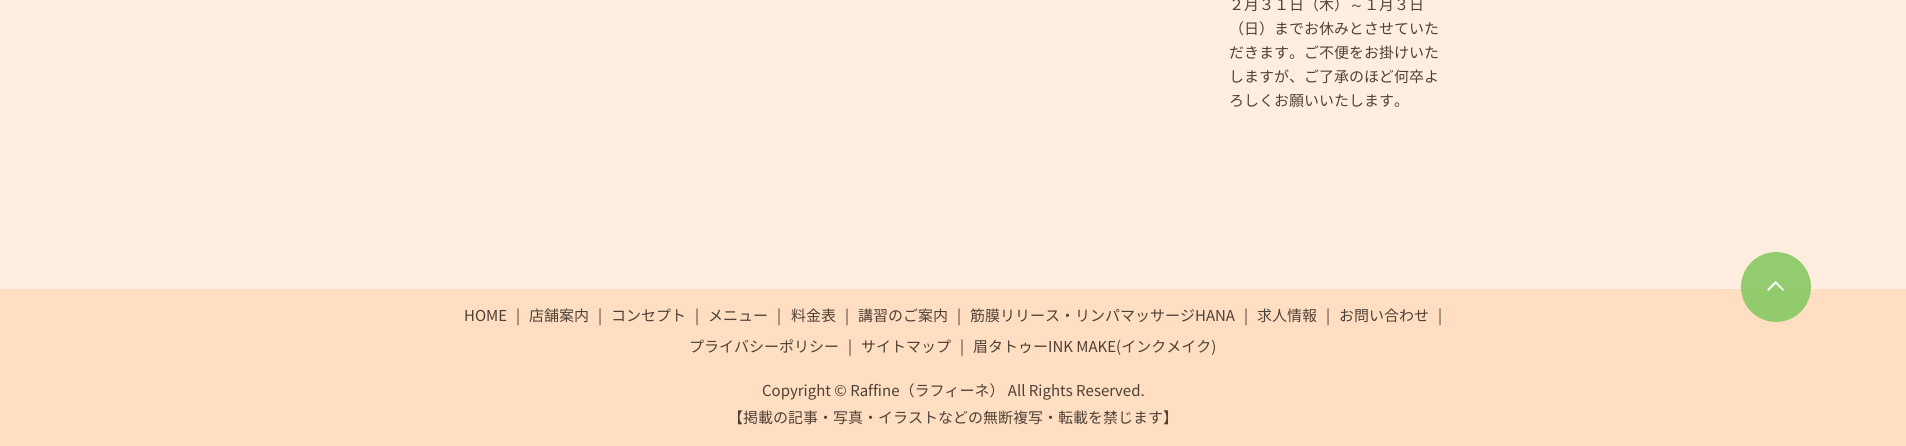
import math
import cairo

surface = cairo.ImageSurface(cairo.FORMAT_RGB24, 1906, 446)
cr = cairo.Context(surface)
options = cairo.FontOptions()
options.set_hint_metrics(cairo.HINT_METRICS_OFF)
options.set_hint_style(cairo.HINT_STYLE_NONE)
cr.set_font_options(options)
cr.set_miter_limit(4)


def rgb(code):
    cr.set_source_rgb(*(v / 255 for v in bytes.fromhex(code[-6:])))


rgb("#ffeedf")
cr.paint()
rgb("#ffdec1")
cr.rectangle(0, 289, 1906, 157)
cr.fill()
cr.set_source_rgba(0.529, 0.788, 0.388, 0.9)
cr.arc(1776, 287, 35, 0, 2 * math.pi)
cr.fill()
rgb("#ffffff")
cr.new_path()
cr.move_to(1775.5, 281)
cr.line_to(1784, 289.5)
cr.line_to(1783, 291)
cr.line_to(1774.5, 282.5)
cr.close_path()
cr.fill()
cr.new_path()
cr.move_to(1775.5, 281)
cr.line_to(1777, 282.5)
cr.line_to(1768.5, 291)
cr.line_to(1767, 289.5)
cr.close_path()
cr.fill()
cr.select_font_face("Noto Sans JP")
cr.set_font_size(15)
rgb("#4d4036")
cr.move_to(1229, 10)
cr.show_text("２月３１日（木）")
cr.select_font_face("WenQuanYi Zen Hei Medium")
cr.move_to(1349, 10)
cr.show_text("～")
cr.select_font_face("Noto Sans JP")
for x, y, s in [
    (1364, 10, "１月３日"),
    (1229, 34, "（日）までお休みとさせていた"),
    (1229, 58, "だきます。ご不便をお掛けいた"),
    (1229, 82, "しますが、ご了承のほど何卒よ"),
    (1229, 106, "ろしくお願いいたします。"),
    (516, 321, "|"),
    (529, 321, "店舗案内"),
    (598, 321, "|"),
    (611, 321, "コンセプト"),
    (1438, 321, "|"),
    (689, 352, "プライバシーポリシー"),
    (464, 321, "HOME"),
    (695, 321, "|"),
    (708, 321, "メニュー"),
    (777, 321, "|"),
    (791, 321, "料金表"),
    (845, 321, "|"),
    (858, 321, "講習のご案内"),
    (957, 321, "|"),
    (970, 321, "筋膜リリース・リンパマッサージHANA"),
    (1244, 321, "|"),
    (1257, 321, "求人情報"),
    (1326, 321, "|"),
    (1339, 321, "お問い合わせ"),
    (848, 352, "|"),
    (861, 352, "サイトマップ"),
    (960, 352, "|"),
    (973, 352, "眉タトゥーINK MAKE(インクメイク)"),
    (762, 396, "Copyright © Raffine（ラフィーネ） All Rights Reserved."),
    (728, 423, "【掲載の記事・写真・イラストなどの無断複写・転載を禁じます】"),
]:
    cr.move_to(x, y)
    cr.show_text(s)
surface.write_to_png("page.png")
